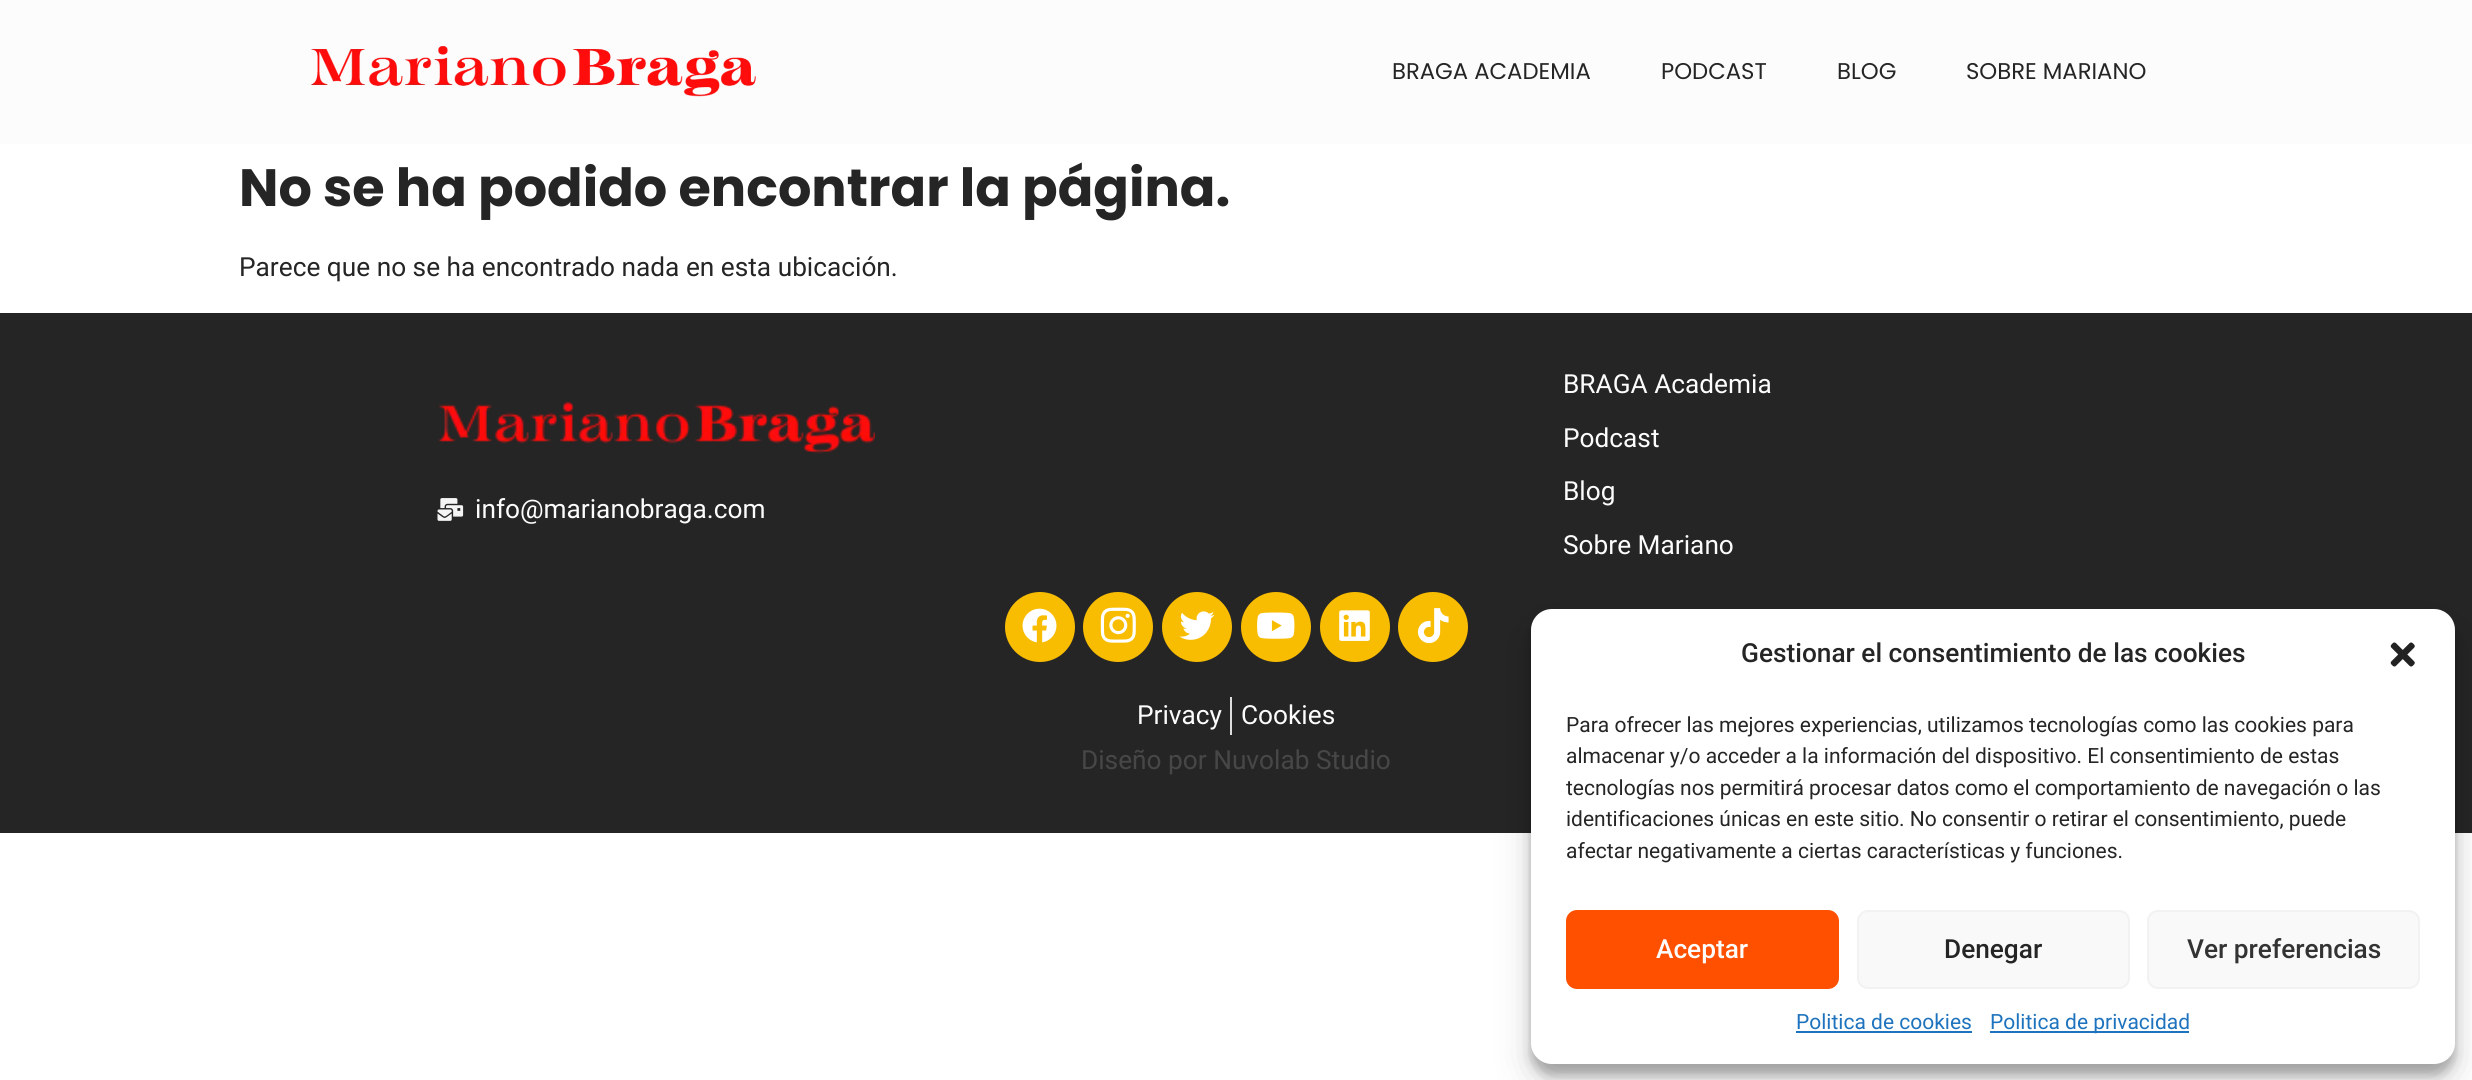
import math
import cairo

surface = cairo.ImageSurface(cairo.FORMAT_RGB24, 2472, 1080)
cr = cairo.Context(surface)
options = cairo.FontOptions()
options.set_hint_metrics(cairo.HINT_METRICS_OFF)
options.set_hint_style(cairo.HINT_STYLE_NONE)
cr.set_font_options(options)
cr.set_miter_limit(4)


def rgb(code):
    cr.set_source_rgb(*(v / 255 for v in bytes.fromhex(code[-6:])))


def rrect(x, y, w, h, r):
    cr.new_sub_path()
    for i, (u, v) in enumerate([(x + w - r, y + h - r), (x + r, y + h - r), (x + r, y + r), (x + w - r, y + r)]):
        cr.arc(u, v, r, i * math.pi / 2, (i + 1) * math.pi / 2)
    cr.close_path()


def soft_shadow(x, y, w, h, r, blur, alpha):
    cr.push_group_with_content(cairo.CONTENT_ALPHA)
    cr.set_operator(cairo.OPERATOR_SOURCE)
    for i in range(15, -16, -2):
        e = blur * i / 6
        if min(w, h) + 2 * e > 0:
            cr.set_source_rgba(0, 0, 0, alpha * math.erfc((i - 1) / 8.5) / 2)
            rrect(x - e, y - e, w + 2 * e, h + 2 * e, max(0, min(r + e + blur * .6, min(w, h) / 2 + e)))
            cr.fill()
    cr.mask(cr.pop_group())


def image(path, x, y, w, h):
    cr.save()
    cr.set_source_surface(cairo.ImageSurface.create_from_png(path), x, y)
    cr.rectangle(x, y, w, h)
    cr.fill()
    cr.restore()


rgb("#ffffff")
cr.paint()
rgb("#fcfcfc")
cr.rectangle(0, 0, 2472, 144)
cr.fill()
image("img/1.png", 311, 46, 445, 51)
rgb("#252525")
cr.rectangle(0, 313, 2472, 520)
cr.fill()
image("img/2.png", 438, 402, 437, 52)
image("img/3.png", 437, 498, 27, 23)
rgb("#f8bc01")
cr.arc(1040, 627, 35, 0, 2 * math.pi)
cr.fill()
image("img/4.png", 1022, 608, 35, 35)
cr.arc(1118, 627, 35, 0, 2 * math.pi)
cr.fill()
image("img/5.png", 1100, 607, 36, 36)
cr.arc(1197, 627, 35, 0, 2 * math.pi)
cr.fill()
image("img/6.png", 1179, 611, 36, 29)
cr.arc(1276, 627, 35, 0, 2 * math.pi)
cr.fill()
image("img/7.png", 1257, 612, 38, 27)
cr.arc(1355, 627, 35, 0, 2 * math.pi)
cr.fill()
image("img/8.png", 1339, 610, 31, 31)
cr.arc(1433, 627, 35, 0, 2 * math.pi)
cr.fill()
image("img/9.png", 1417, 608, 32, 36)
rgb("#dddddd")
cr.rectangle(1230, 697, 2, 38)
cr.fill()
rgb("#000000")
soft_shadow(1531, 620, 924, 455, 21, 5, 0.23)
soft_shadow(1531, 627, 924, 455, 21, 17.5, 0.19)
rgb("#ffffff")
rrect(1531, 609, 924, 455, 21)
cr.fill()
image("img/10.png", 2390, 642, 25, 25)
rgb("#ff5000")
rrect(1567, 911, 271, 77, 10)
cr.fill_preserve()
cr.stroke()
rgb("#f9f9f9")
rrect(1858, 911, 271, 77, 10)
cr.fill_preserve()
rgb("#f2f2f2")
cr.stroke()
rgb("#f9f9f9")
rrect(2148, 911, 271, 77, 10)
cr.fill_preserve()
rgb("#f2f2f2")
cr.stroke()
rgb("#1e73be")
cr.rectangle(1796, 1031, 176, 2)
cr.fill()
cr.rectangle(1990, 1031, 199, 2)
cr.fill()
cr.select_font_face("Poppins")
cr.set_font_size(22.75)
rgb("#252525")
for x, y, s in [
    (1392, 79, "BRAGA ACADEMIA"),
    (1661, 79, "PODCAST"),
    (1837, 79, "BLOG"),
    (1966, 79, "SOBRE MARIANO"),
]:
    cr.move_to(x, y)
    cr.show_text(s)
cr.select_font_face("Poppins", cairo.FONT_SLANT_NORMAL, cairo.FONT_WEIGHT_BOLD)
cr.set_font_size(52.5)
cr.move_to(239, 206)
cr.show_text("No se ha podido encontrar la página.")
cr.select_font_face("Roboto")
cr.set_font_size(26.25)
cr.move_to(239, 276)
cr.show_text("Parece que no se ha encontrado nada en esta ubicación.")
rgb("#fcfcfc")
for x, y, s in [
    (475, 518, "info@marianobraga.com"),
    (1563, 393, "BRAGA Academia"),
    (1563, 447, "Podcast"),
    (1563, 500, "Blog"),
    (1563, 554, "Sobre Mariano"),
    (1137, 724, "Privacy"),
    (1241, 724, "Cookies"),
]:
    cr.move_to(x, y)
    cr.show_text(s)
rgb("#484747")
cr.move_to(1081, 769)
cr.show_text("Diseño por Nuvolab Studio")
cr.select_font_face("Roboto Medium")
rgb("#252525")
cr.move_to(1741, 662)
cr.show_text("Gestionar el consentimiento de las cookies")
cr.select_font_face("Roboto")
cr.set_font_size(21)
for x, y, s in [
    (1566, 732, "Para ofrecer las mejores experiencias, utilizamos tecnologías como las cookies para"),
    (1566, 763, "almacenar y/o acceder a la información del dispositivo. El consentimiento de estas"),
    (1566, 795, "tecnologías nos permitirá procesar datos como el comportamiento de navegación o las"),
    (1566, 826, "identificaciones únicas en este sitio. No consentir o retirar el consentimiento, puede"),
    (1566, 858, "afectar negativamente a ciertas características y funciones."),
]:
    cr.move_to(x, y)
    cr.show_text(s)
cr.select_font_face("Roboto Medium")
cr.set_font_size(26.25)
rgb("#fcfcfc")
cr.move_to(1656, 958)
cr.show_text("Aceptar")
rgb("#252525")
cr.move_to(1944, 958)
cr.show_text("Denegar")
rgb("#333333")
cr.move_to(2187, 958)
cr.show_text("Ver preferencias")
cr.select_font_face("Roboto")
cr.set_font_size(21)
rgb("#1e73be")
cr.move_to(1796, 1029)
cr.show_text("Politica de cookies")
cr.move_to(1990, 1029)
cr.show_text("Politica de privacidad")
surface.write_to_png("page.png")
